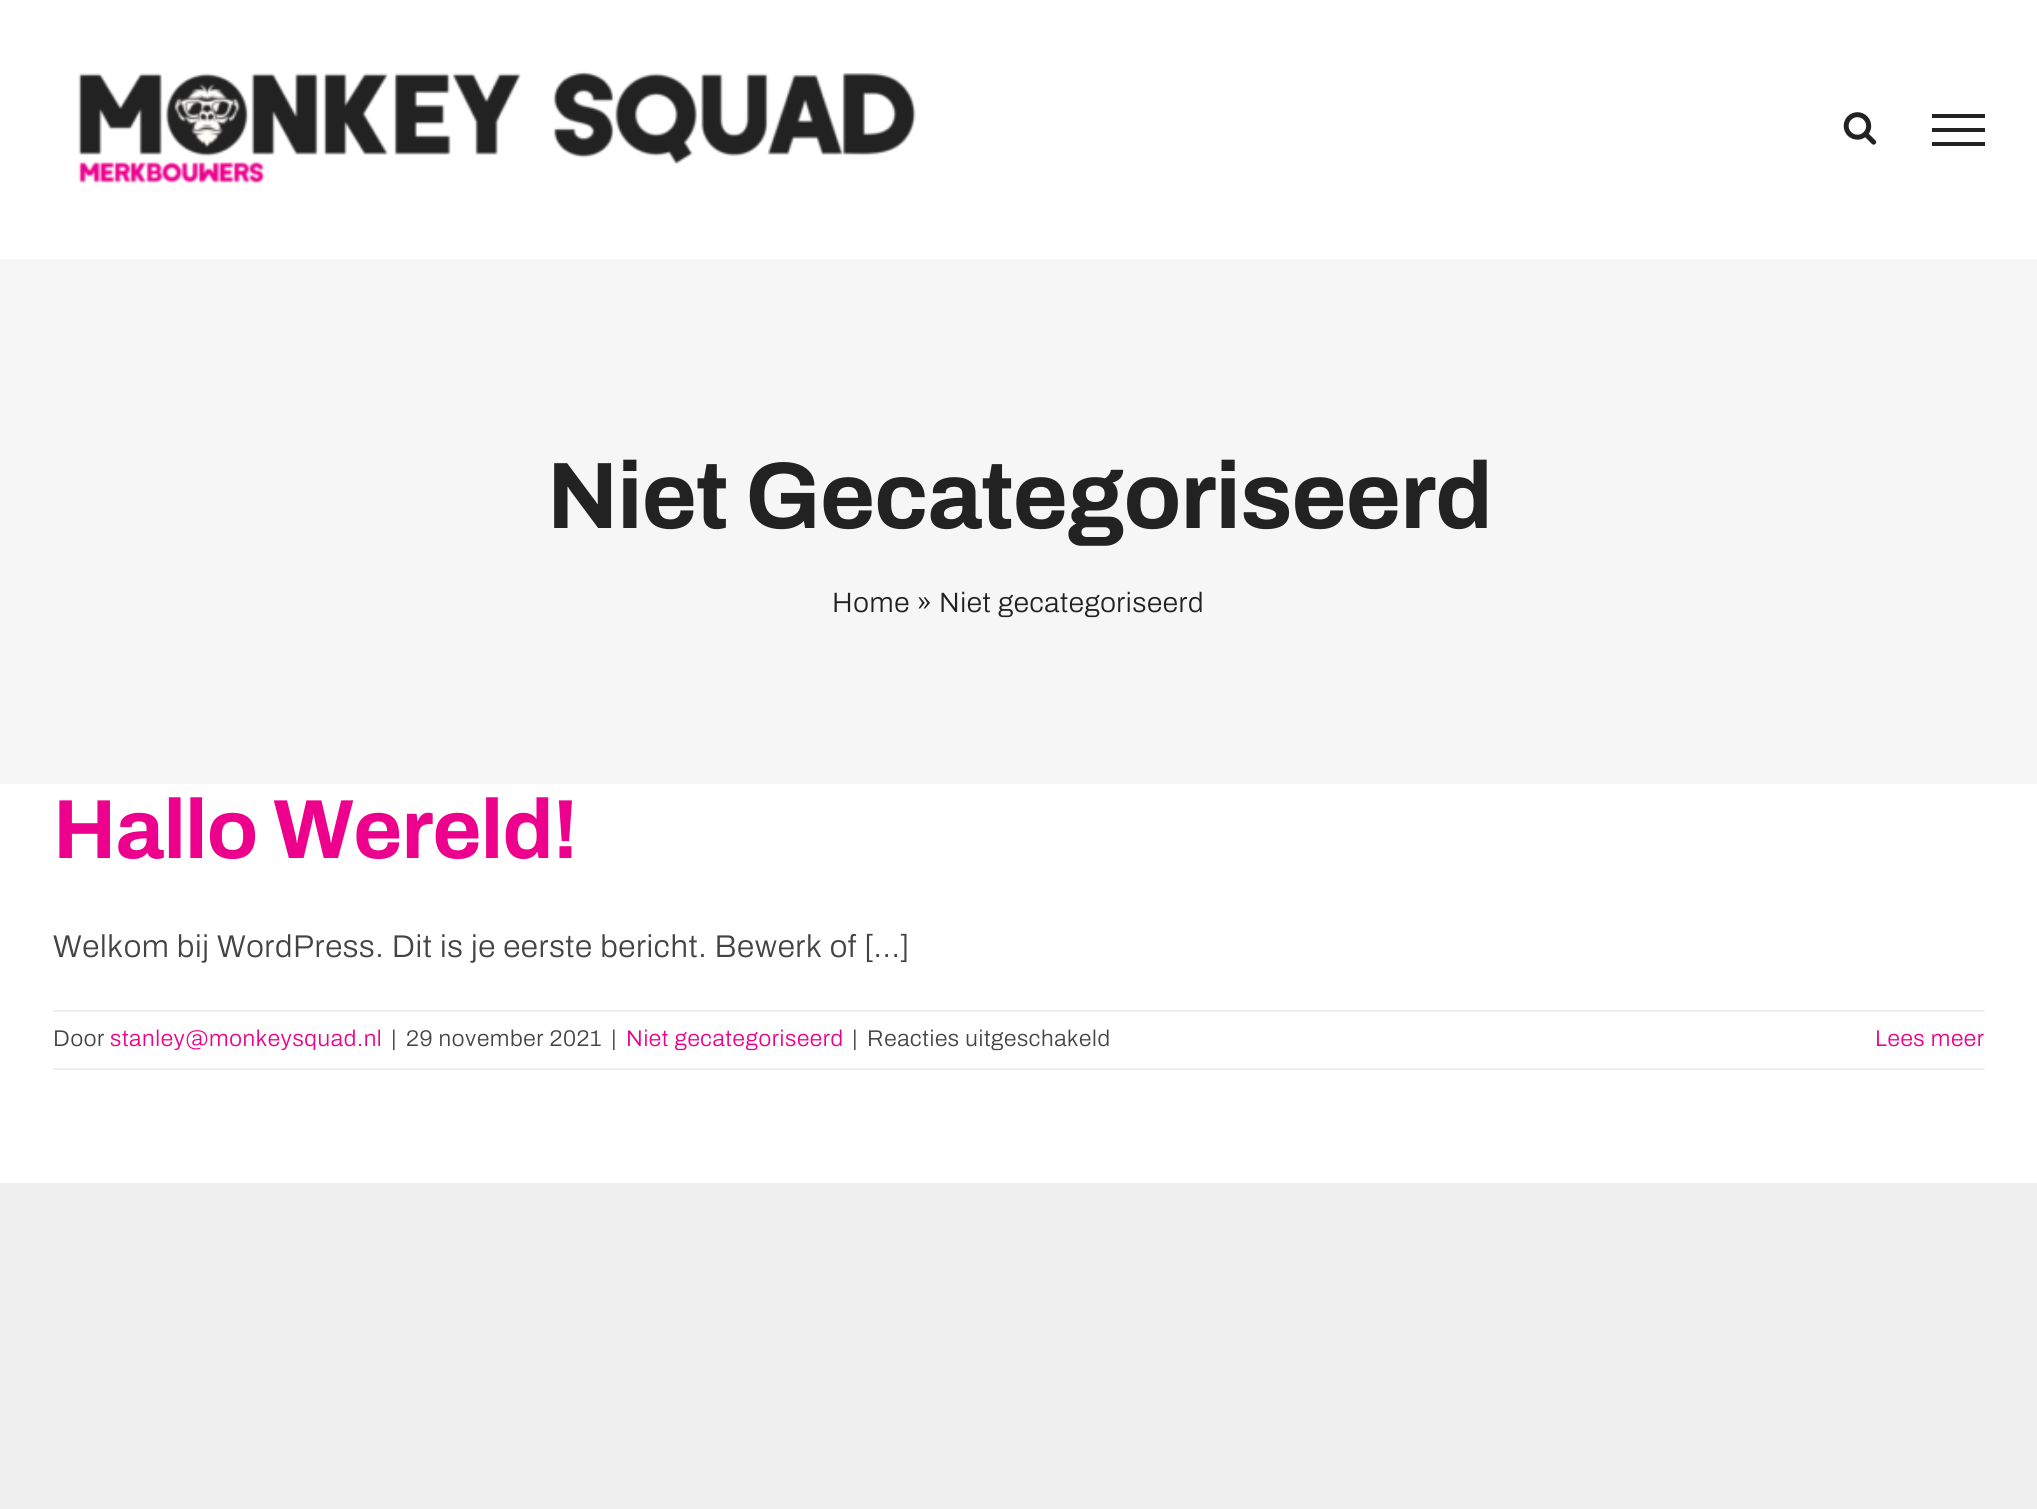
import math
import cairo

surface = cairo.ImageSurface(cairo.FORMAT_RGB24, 2037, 1509)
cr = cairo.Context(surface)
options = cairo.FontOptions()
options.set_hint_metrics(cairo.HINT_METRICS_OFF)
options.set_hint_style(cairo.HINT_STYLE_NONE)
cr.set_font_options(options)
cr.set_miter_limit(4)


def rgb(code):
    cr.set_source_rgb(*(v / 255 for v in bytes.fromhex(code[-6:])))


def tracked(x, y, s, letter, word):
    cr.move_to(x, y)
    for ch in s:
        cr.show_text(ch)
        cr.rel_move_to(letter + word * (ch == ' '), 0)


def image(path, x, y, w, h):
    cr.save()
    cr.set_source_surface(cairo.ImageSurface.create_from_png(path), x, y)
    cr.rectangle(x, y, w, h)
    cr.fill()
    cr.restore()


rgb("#efefef")
cr.paint()
rgb("#ffffff")
cr.rectangle(0, 0, 2037, 1183)
cr.fill()
image("img/1.png", 78, 71, 838, 113)
image("img/2.png", 1843, 112, 34, 33)
for x, y, w, h, color in [
    (1932, 114, 53, 4, "#222222"),
    (1932, 128, 53, 4, "#222222"),
    (1932, 142, 53, 4, "#222222"),
    (0, 259, 2037, 525, "#f6f6f6"),
    (53, 1010, 1932, 2, "#efefef"),
    (53, 1068, 1932, 2, "#efefef"),
]:
    rgb(color)
    cr.rectangle(x, y, w, h)
    cr.fill()
cr.select_font_face("Archivo", cairo.FONT_SLANT_NORMAL, cairo.FONT_WEIGHT_BOLD)
cr.set_font_size(94.5)
rgb("#222222")
tracked(547, 528, "Niet Gecategoriseerd", -0.9, 0)
cr.select_font_face("Archivo Light")
cr.set_font_size(28)
tracked(832, 612, "Home » Niet gecategoriseerd", 0.63, 0)
cr.select_font_face("Archivo", cairo.FONT_SLANT_NORMAL, cairo.FONT_WEIGHT_BOLD)
cr.set_font_size(84)
rgb("#ec008c")
tracked(53, 858, "Hallo Wereld!", -0.8, 0)
cr.select_font_face("Archivo Light")
cr.set_font_size(31.5)
rgb("#444444")
tracked(53, 957, "Welkom bij WordPress. Dit is je eerste bericht. Bewerk of [...]", 0.63, 0)
cr.set_font_size(22.75)
tracked(53, 1046, "Door", 0.63, 0)
rgb("#ec008c")
tracked(110, 1046, "stanley@monkeysquad.nl", 0.63, 0)
rgb("#444444")
for x, y, s in [
    (391, 1046, "|"),
    (406, 1046, "29 november 2021"),
    (611, 1046, "|"),
]:
    tracked(x, y, s, 0.63, 0)
rgb("#ec008c")
tracked(626, 1046, "Niet gecategoriseerd", 0.63, 0)
rgb("#444444")
tracked(852, 1046, "|", 0.63, 0)
tracked(867, 1046, "Reacties uitgeschakeld", 0.63, 0)
rgb("#ec008c")
tracked(1875, 1046, "Lees meer", 0.63, 0)
surface.write_to_png("page.png")
